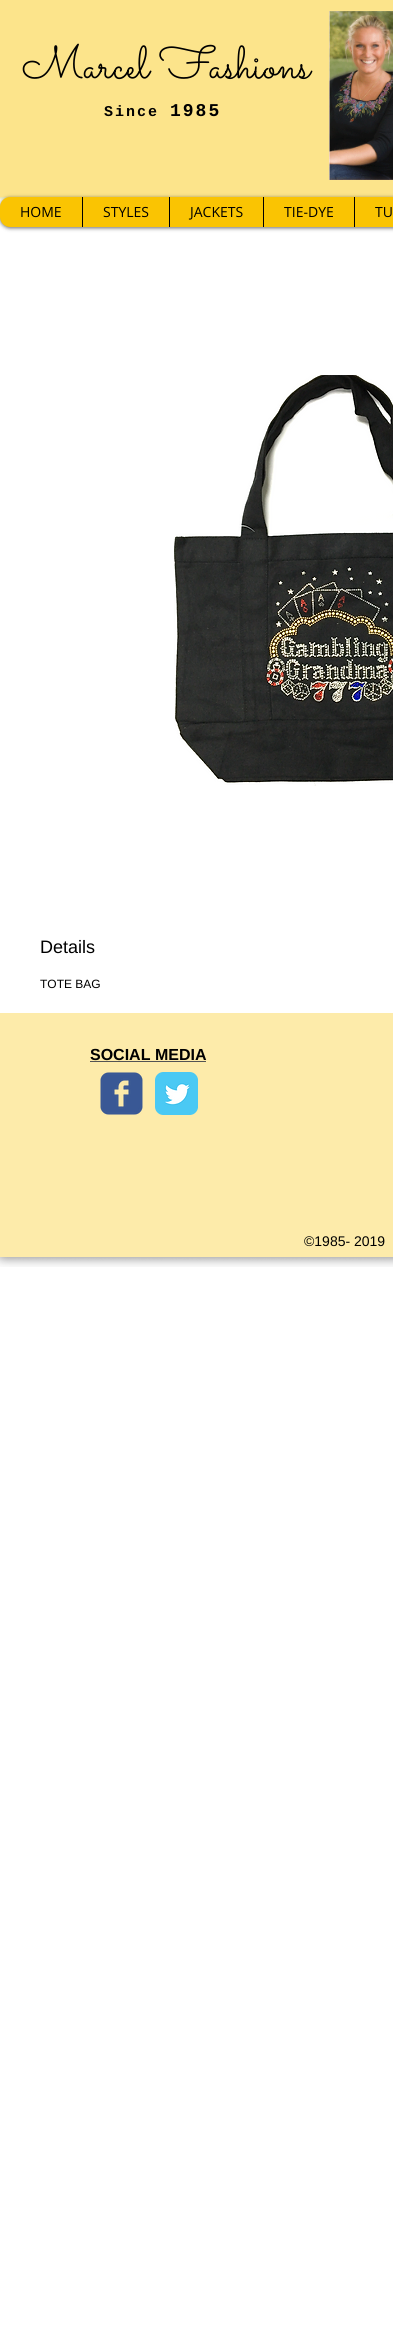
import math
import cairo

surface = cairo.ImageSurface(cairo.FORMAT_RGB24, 393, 2327)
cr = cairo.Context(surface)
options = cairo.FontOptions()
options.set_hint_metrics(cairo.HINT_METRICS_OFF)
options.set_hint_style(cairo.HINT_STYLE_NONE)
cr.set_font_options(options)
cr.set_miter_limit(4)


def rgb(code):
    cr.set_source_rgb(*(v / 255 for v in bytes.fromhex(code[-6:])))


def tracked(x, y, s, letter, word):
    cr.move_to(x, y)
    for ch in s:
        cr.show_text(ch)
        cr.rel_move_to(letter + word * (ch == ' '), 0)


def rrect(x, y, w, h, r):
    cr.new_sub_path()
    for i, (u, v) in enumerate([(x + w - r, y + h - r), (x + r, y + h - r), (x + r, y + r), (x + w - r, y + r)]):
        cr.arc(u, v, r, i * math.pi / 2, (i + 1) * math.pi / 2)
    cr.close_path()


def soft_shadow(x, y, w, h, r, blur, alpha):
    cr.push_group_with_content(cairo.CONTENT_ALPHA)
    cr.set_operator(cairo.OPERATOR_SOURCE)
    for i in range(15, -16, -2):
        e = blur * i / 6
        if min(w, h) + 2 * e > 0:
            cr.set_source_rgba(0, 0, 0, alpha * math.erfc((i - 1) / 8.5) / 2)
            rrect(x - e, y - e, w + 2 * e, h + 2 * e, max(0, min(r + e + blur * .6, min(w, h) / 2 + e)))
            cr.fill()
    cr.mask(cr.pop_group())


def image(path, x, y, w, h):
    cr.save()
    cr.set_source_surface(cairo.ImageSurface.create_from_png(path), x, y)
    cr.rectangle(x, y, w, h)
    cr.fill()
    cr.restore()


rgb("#ffffff")
cr.paint()
rgb("#c5ba27")
soft_shadow(-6, 1, 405, 197, 0, 2, 0.6)
rgb("#fce48b")
cr.rectangle(0, 0, 393, 197)
cr.fill()
image("img/1.png", 329, 11, 64, 169)
rgb("#000000")
soft_shadow(0, 198, 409, 30, 10, 2, 0.6)
rgb("#fac402")
rrect(0, 197, 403, 30, 10)
cr.fill()
for x, y, w, h, color in [
    (82, 197, 1, 30, "#000000"),
    (169, 197, 1, 30, "#000000"),
    (263, 197, 1, 30, "#000000"),
    (354, 197, 1, 30, "#000000"),
]:
    rgb(color)
    cr.rectangle(x, y, w, h)
    cr.fill()
image("img/2.png", 174, 375, 219, 411)
rgb("#fdebaa")
cr.rectangle(0, 1013, 393, 244)
cr.fill()
image("img/3.png", 0, 1257, 35, 10)
image("img/4.png", 35, 1257, 358, 10)
rgb("#535353")
cr.rectangle(90, 1061, 116, 1)
cr.fill()
image("img/5.png", 100, 1072, 43, 43)
image("img/6.png", 155, 1072, 43, 43)
cr.select_font_face("Sacramento")
cr.set_font_size(46)
rgb("#000000")
cr.move_to(22, 78)
cr.show_text("Marcel Fashions")
cr.select_font_face("Liberation Mono", cairo.FONT_SLANT_NORMAL, cairo.FONT_WEIGHT_BOLD)
cr.set_font_size(15)
tracked(104, 116, "Since", 2, 0)
cr.set_font_size(18)
tracked(170, 116, "1985", 2, 0)
cr.select_font_face("Open Sans")
cr.set_font_size(14)
for x, y, s in [
    (20, 217, "HOME"),
    (103, 217, "STYLES"),
    (190, 217, "JACKETS"),
    (284, 217, "TIE-DYE"),
    (375, 217, "TU"),
]:
    cr.move_to(x, y)
    cr.show_text(s)
cr.select_font_face("Liberation Sans")
cr.set_font_size(18)
cr.move_to(40, 953)
cr.show_text("Details")
cr.set_font_size(12)
cr.move_to(40, 988)
cr.show_text("TOTE BAG")
cr.select_font_face("Liberation Sans", cairo.FONT_SLANT_NORMAL, cairo.FONT_WEIGHT_BOLD)
cr.set_font_size(16)
cr.move_to(90, 1060)
cr.show_text("SOCIAL MEDIA")
cr.select_font_face("Liberation Sans")
cr.set_font_size(14)
cr.move_to(304, 1246)
cr.show_text("©1985- 2019")
surface.write_to_png("page.png")
